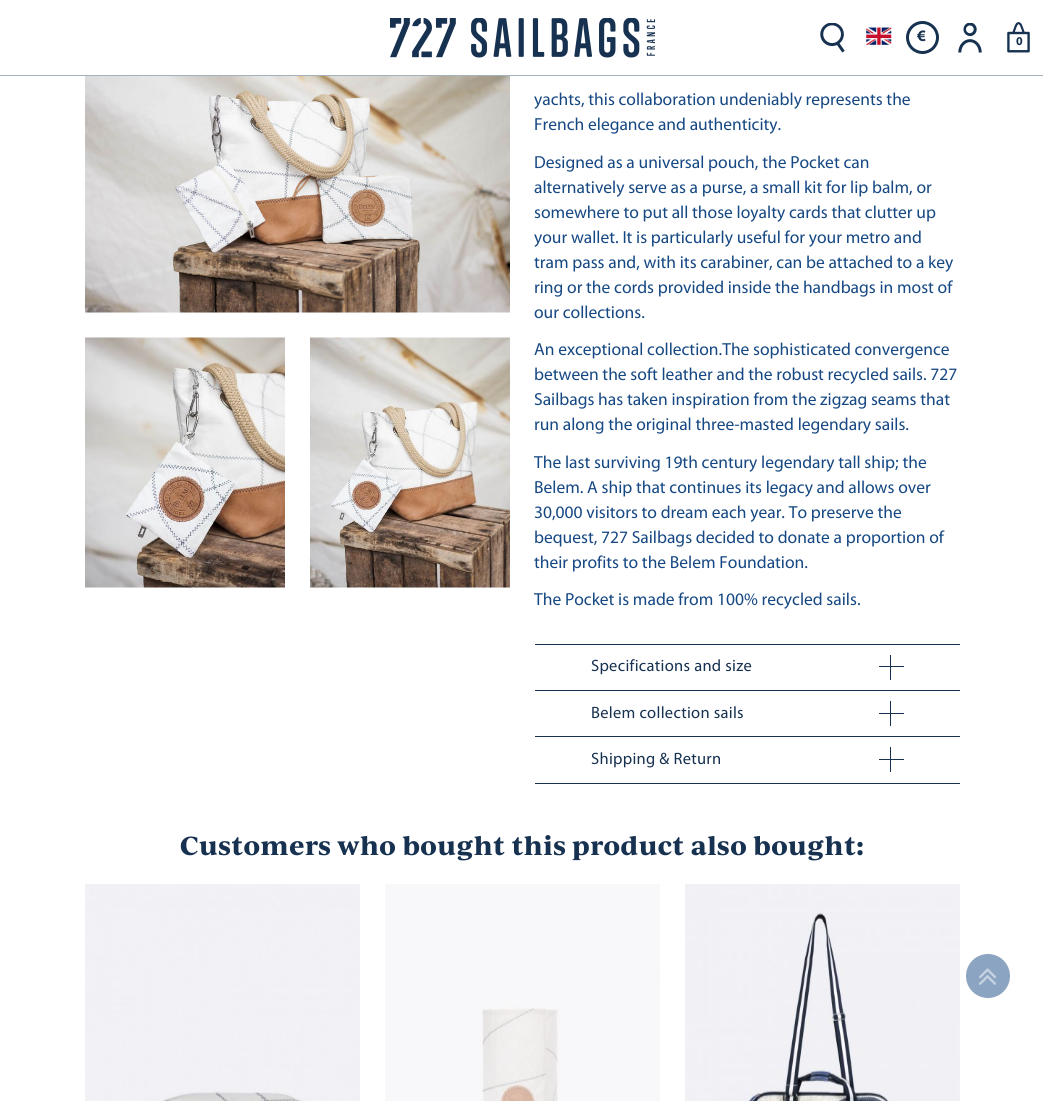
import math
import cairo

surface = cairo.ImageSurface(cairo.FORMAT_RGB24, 1043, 1101)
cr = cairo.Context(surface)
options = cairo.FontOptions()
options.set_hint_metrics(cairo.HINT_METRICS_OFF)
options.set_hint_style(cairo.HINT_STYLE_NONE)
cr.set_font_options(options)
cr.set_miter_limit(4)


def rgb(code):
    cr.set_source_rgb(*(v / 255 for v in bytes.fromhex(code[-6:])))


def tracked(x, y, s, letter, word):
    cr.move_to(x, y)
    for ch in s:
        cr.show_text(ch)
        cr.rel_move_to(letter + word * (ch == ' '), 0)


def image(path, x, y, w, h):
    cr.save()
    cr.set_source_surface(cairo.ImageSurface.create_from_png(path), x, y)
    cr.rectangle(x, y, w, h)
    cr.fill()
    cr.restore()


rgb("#ffffff")
cr.paint()
rgb("#a4b2bb")
cr.rectangle(0, 75, 1043, 1)
cr.fill()
image("img/1.png", 390, 18, 265, 40)
image("img/2.png", 820, 23, 25, 30)
image("img/3.png", 866, 27, 26, 18)
cr.arc(922.5, 37.5, 15, 0, 2 * math.pi)
rgb("#173151")
cr.set_line_width(3)
cr.stroke()
image("img/4.png", 958, 23, 24, 30)
image("img/5.png", 1007, 22, 23, 31)
image("img/6.png", 85, 76, 425, 237)
image("img/7.png", 85, 337, 200, 251)
image("img/8.png", 310, 337, 200, 251)
for x, y, w, h, color in [
    (535, 644, 425, 1, "#173151"),
    (890, 655, 1, 25, "#173151"),
    (879, 666, 25, 1, "#173151"),
    (535, 690, 425, 1, "#173151"),
    (890, 701, 1, 25, "#173151"),
    (879, 713, 25, 1, "#173151"),
    (535, 736, 425, 1, "#173151"),
    (535, 783, 425, 1, "#173151"),
    (890, 747, 1, 25, "#173151"),
    (879, 759, 25, 1, "#173151"),
]:
    rgb(color)
    cr.rectangle(x, y, w, h)
    cr.fill()
image("img/9.png", 85, 884, 275, 217)
image("img/10.png", 385, 884, 275, 217)
image("img/11.png", 685, 884, 275, 217)
rgb("#8ba4c1")
cr.arc(988, 976, 23.5, 0, 2 * math.pi)
cr.fill_preserve()
rgb("#ffffff")
cr.stroke()
image("img/12.png", 979, 968, 18, 17)
cr.select_font_face("Myriad", cairo.FONT_SLANT_NORMAL, cairo.FONT_WEIGHT_BOLD)
cr.set_font_size(16)
rgb("#173151")
cr.move_to(917, 41)
cr.show_text("€")
cr.set_font_size(12)
cr.move_to(1016, 45)
cr.show_text("0")
cr.select_font_face("Myriad")
cr.set_font_size(17.5)
rgb("#164883")
for x, y, s in [
    (534, 105, "yachts, this collaboration undeniably represents the"),
    (534, 130, "French elegance and authenticity."),
    (534, 168, "Designed as a universal pouch, the Pocket can"),
    (534, 193, "alternatively serve as a purse, a small kit for lip balm, or"),
    (534, 218, "somewhere to put all those loyalty cards that clutter up"),
    (534, 243, "your wallet. It is particularly useful for your metro and"),
    (534, 268, "tram pass and, with its carabiner, can be attached to a key"),
    (534, 293, "ring or the cords provided inside the handbags in most of"),
    (534, 318, "our collections."),
    (534, 355, "An exceptional collection.The sophisticated convergence"),
    (534, 380, "between the soft leather and the robust recycled sails. 727"),
    (534, 405, "Sailbags has taken inspiration from the zigzag seams that"),
    (534, 430, "run along the original three-masted legendary sails."),
    (534, 468, "The last surviving 19th century legendary tall ship; the"),
    (534, 493, "Belem. A ship that continues its legacy and allows over"),
    (534, 518, "30,000 visitors to dream each year. To preserve the"),
    (534, 543, "bequest, 727 Sailbags decided to donate a proportion of"),
    (534, 568, "their profits to the Belem Foundation."),
    (534, 605, "The Pocket is made from 100% recycled sails."),
]:
    cr.move_to(x, y)
    cr.show_text(s)
cr.set_font_size(16.5)
rgb("#173151")
for x, y, s in [
    (591, 671, "Specifications and size"),
    (591, 718, "Belem collection sails"),
    (591, 764, "Shipping & Return"),
]:
    tracked(x, y, s, 0.3, 0)
cr.select_font_face("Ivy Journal", cairo.FONT_SLANT_NORMAL, cairo.FONT_WEIGHT_BOLD)
cr.set_font_size(25)
tracked(180, 855, "Customers who bought this product also bought:", 0.5, 0)
surface.write_to_png("page.png")
